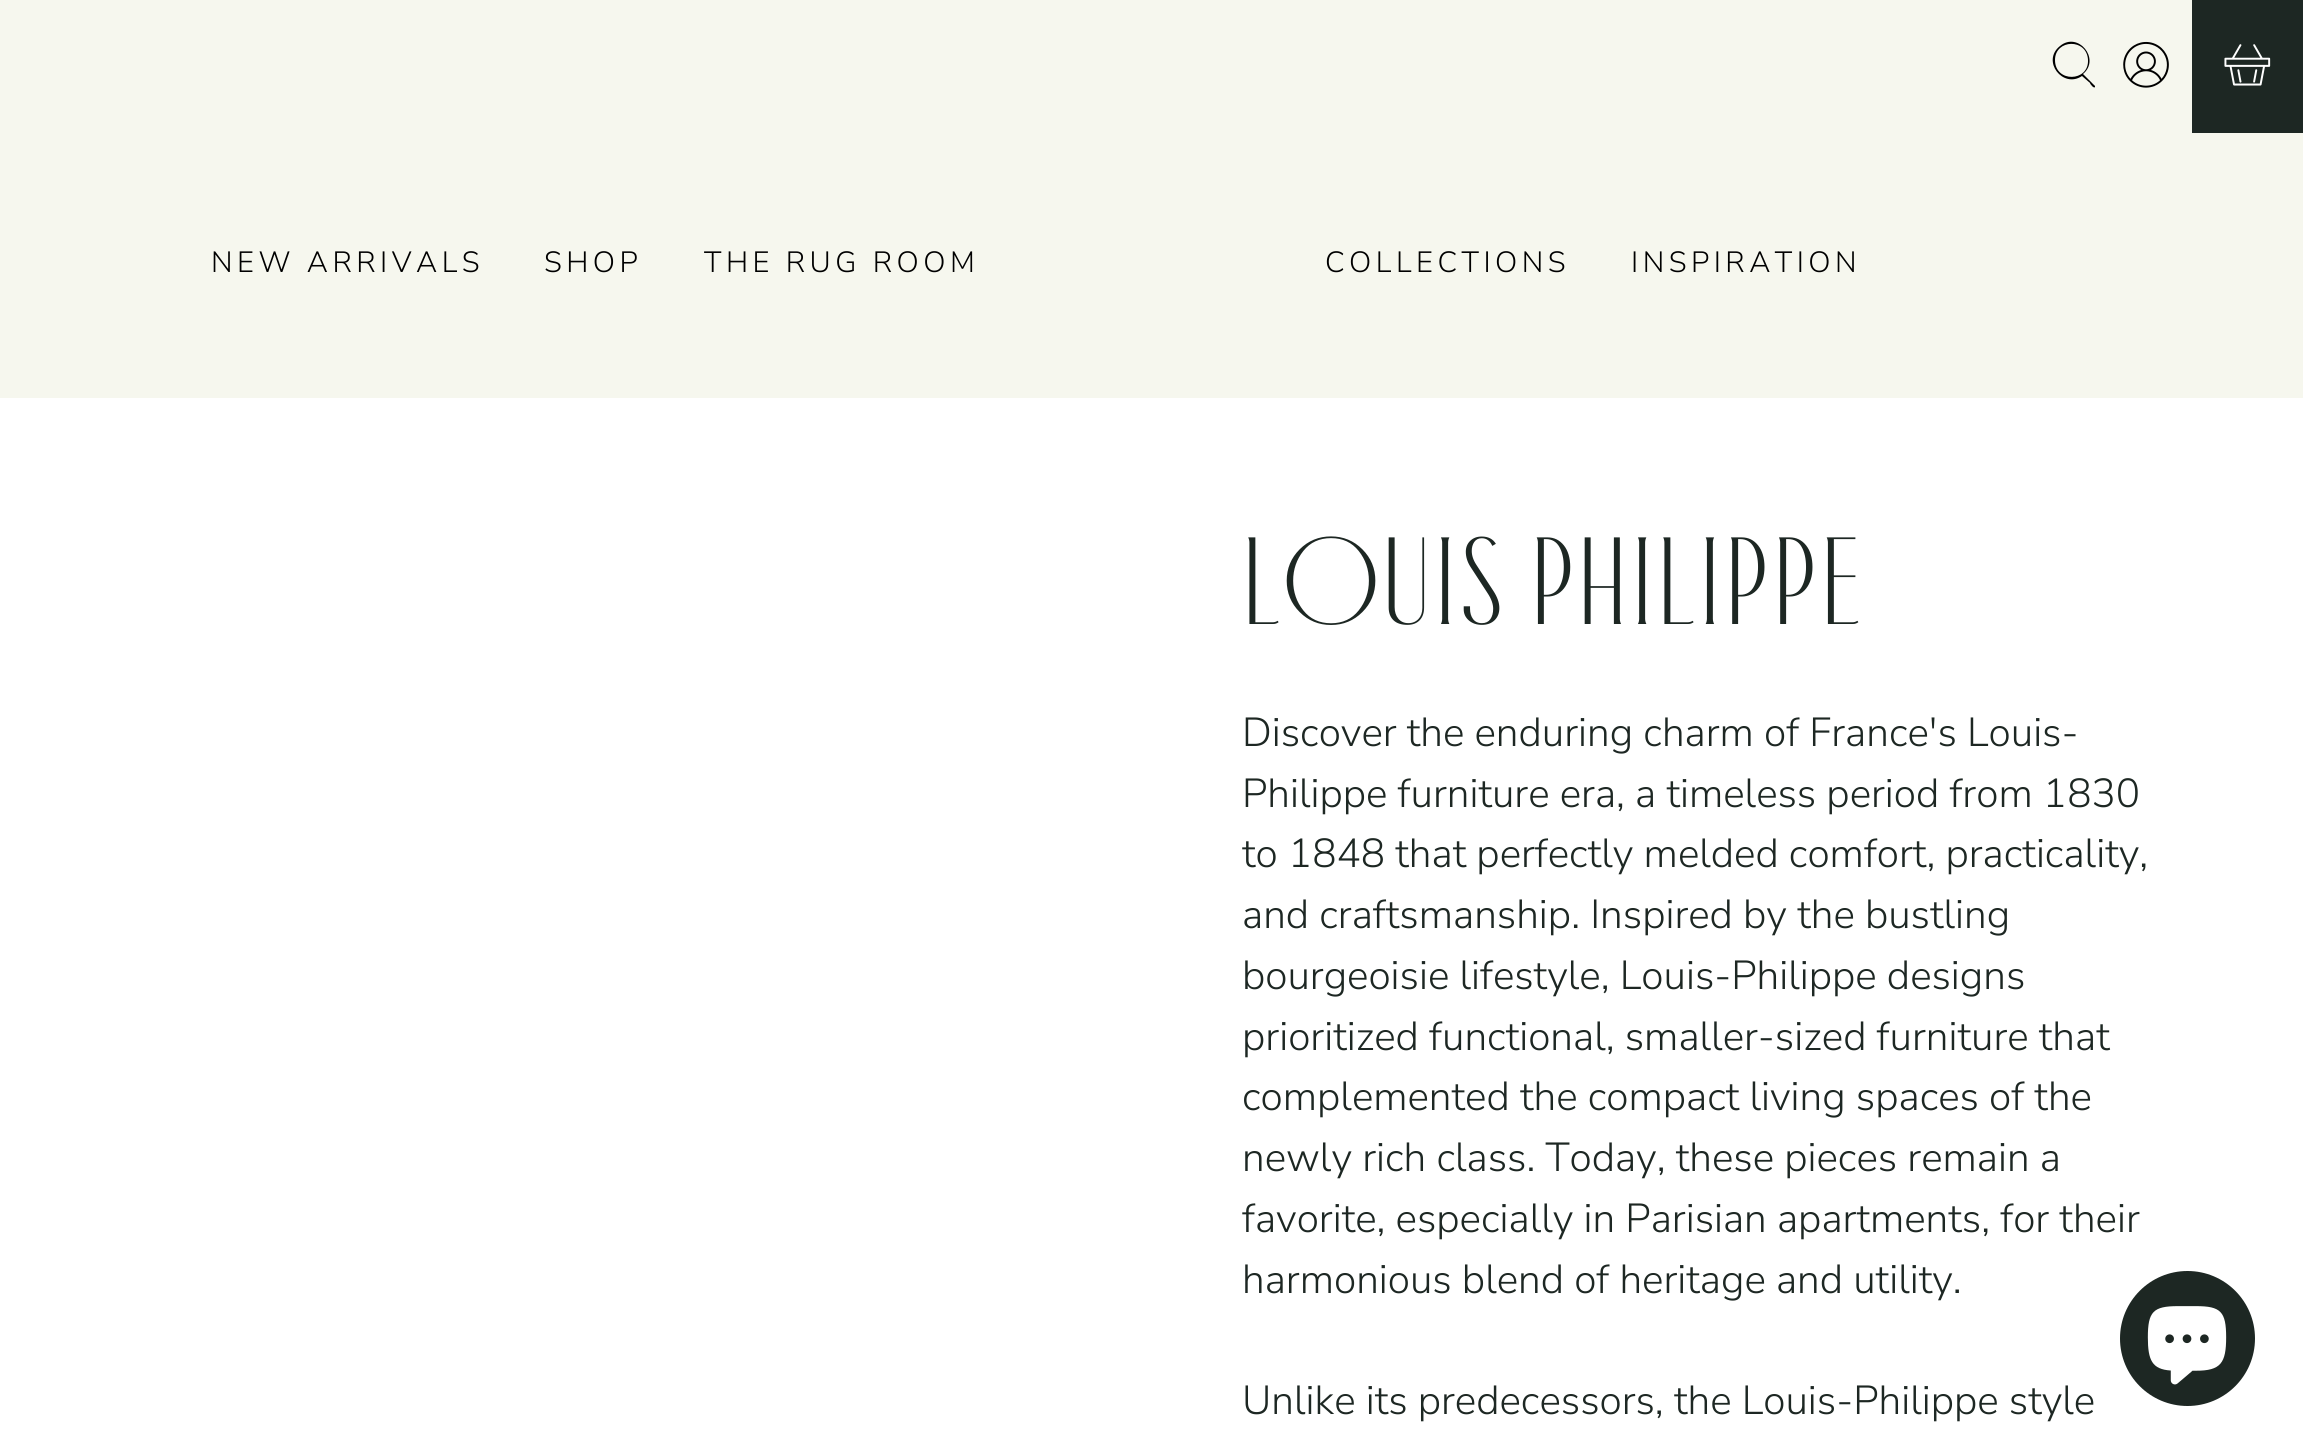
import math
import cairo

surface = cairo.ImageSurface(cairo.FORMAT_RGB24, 2303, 1453)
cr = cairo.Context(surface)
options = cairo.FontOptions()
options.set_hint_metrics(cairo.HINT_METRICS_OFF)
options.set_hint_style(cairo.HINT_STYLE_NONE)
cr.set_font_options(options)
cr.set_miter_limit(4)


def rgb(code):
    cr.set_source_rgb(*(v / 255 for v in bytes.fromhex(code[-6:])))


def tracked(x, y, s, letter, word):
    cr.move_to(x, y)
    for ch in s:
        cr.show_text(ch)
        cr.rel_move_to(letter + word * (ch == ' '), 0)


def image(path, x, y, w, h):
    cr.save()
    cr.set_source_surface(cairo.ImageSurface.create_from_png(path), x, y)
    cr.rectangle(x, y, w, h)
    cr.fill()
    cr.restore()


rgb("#ffffff")
cr.paint()
rgb("#f6f7ee")
cr.rectangle(0, 0, 2192, 133)
cr.fill()
rgb("#000000")
cr.new_path()
cr.move_to(2095, 86)
cr.line_to(2083, 74)
cr.curve_to(2101, 59, 2078, 31, 2060, 46)
cr.curve_to(2041, 61, 2063, 89, 2082, 76)
cr.line_to(2090, 83)
cr.curve_to(2090, 84, 2094, 89, 2095, 87)
cr.close_path()
cr.move_to(2055, 60)
cr.curve_to(2055, 39, 2087, 38, 2088, 60)
cr.curve_to(2089, 82, 2055, 83, 2055, 60)
cr.close_path()
cr.fill()
image("img/1.png", 2123, 41, 46, 47)
rgb("#1d2723")
cr.rectangle(2192, 0, 111, 133)
cr.fill()
image("img/2.png", 2224, 44, 47, 42)
rgb("#f6f7ee")
cr.rectangle(0, 133, 2303, 265)
cr.fill()
rgb("#1d2723")
cr.arc(2187.5, 1338.5, 67.5, 0, 2 * math.pi)
cr.fill()
image("img/3.png", 2147, 1306, 80, 79)
cr.select_font_face("Nunito Sans Light")
cr.set_font_size(29.25)
rgb("#000000")
for x, y, s in [
    (211, 272, "NEW ARRIVALS"),
    (544, 272, "SHOP"),
    (704, 272, "THE RUG ROOM"),
    (1325, 272, "COLLECTIONS"),
    (1631, 272, "INSPIRATION"),
]:
    tracked(x, y, s, 4.5, 0)
cr.select_font_face("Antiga")
cr.set_font_size(123.75)
rgb("#1d2723")
tracked(1242, 624, "Louis Philippe", 4.5, 0)
cr.select_font_face("Nunito Sans Light")
cr.set_font_size(40.5)
for x, y, s in [
    (1242, 746, "Discover the enduring charm of France's Louis-"),
    (1242, 807, "Philippe furniture era, a timeless period from 1830"),
    (1242, 867, "to 1848 that perfectly melded comfort, practicality,"),
    (1242, 928, "and craftsmanship. Inspired by the bustling"),
    (1242, 989, "bourgeoisie lifestyle, Louis-Philippe designs"),
    (1242, 1050, "prioritized functional, smaller-sized furniture that"),
    (1242, 1110, "complemented the compact living spaces of the"),
    (1242, 1171, "newly rich class. Today, these pieces remain a"),
    (1242, 1232, "favorite, especially in Parisian apartments, for their"),
    (1242, 1293, "harmonious blend of heritage and utility."),
    (1242, 1414, "Unlike its predecessors, the Louis-Philippe style"),
]:
    cr.move_to(x, y)
    cr.show_text(s)
surface.write_to_png("page.png")
